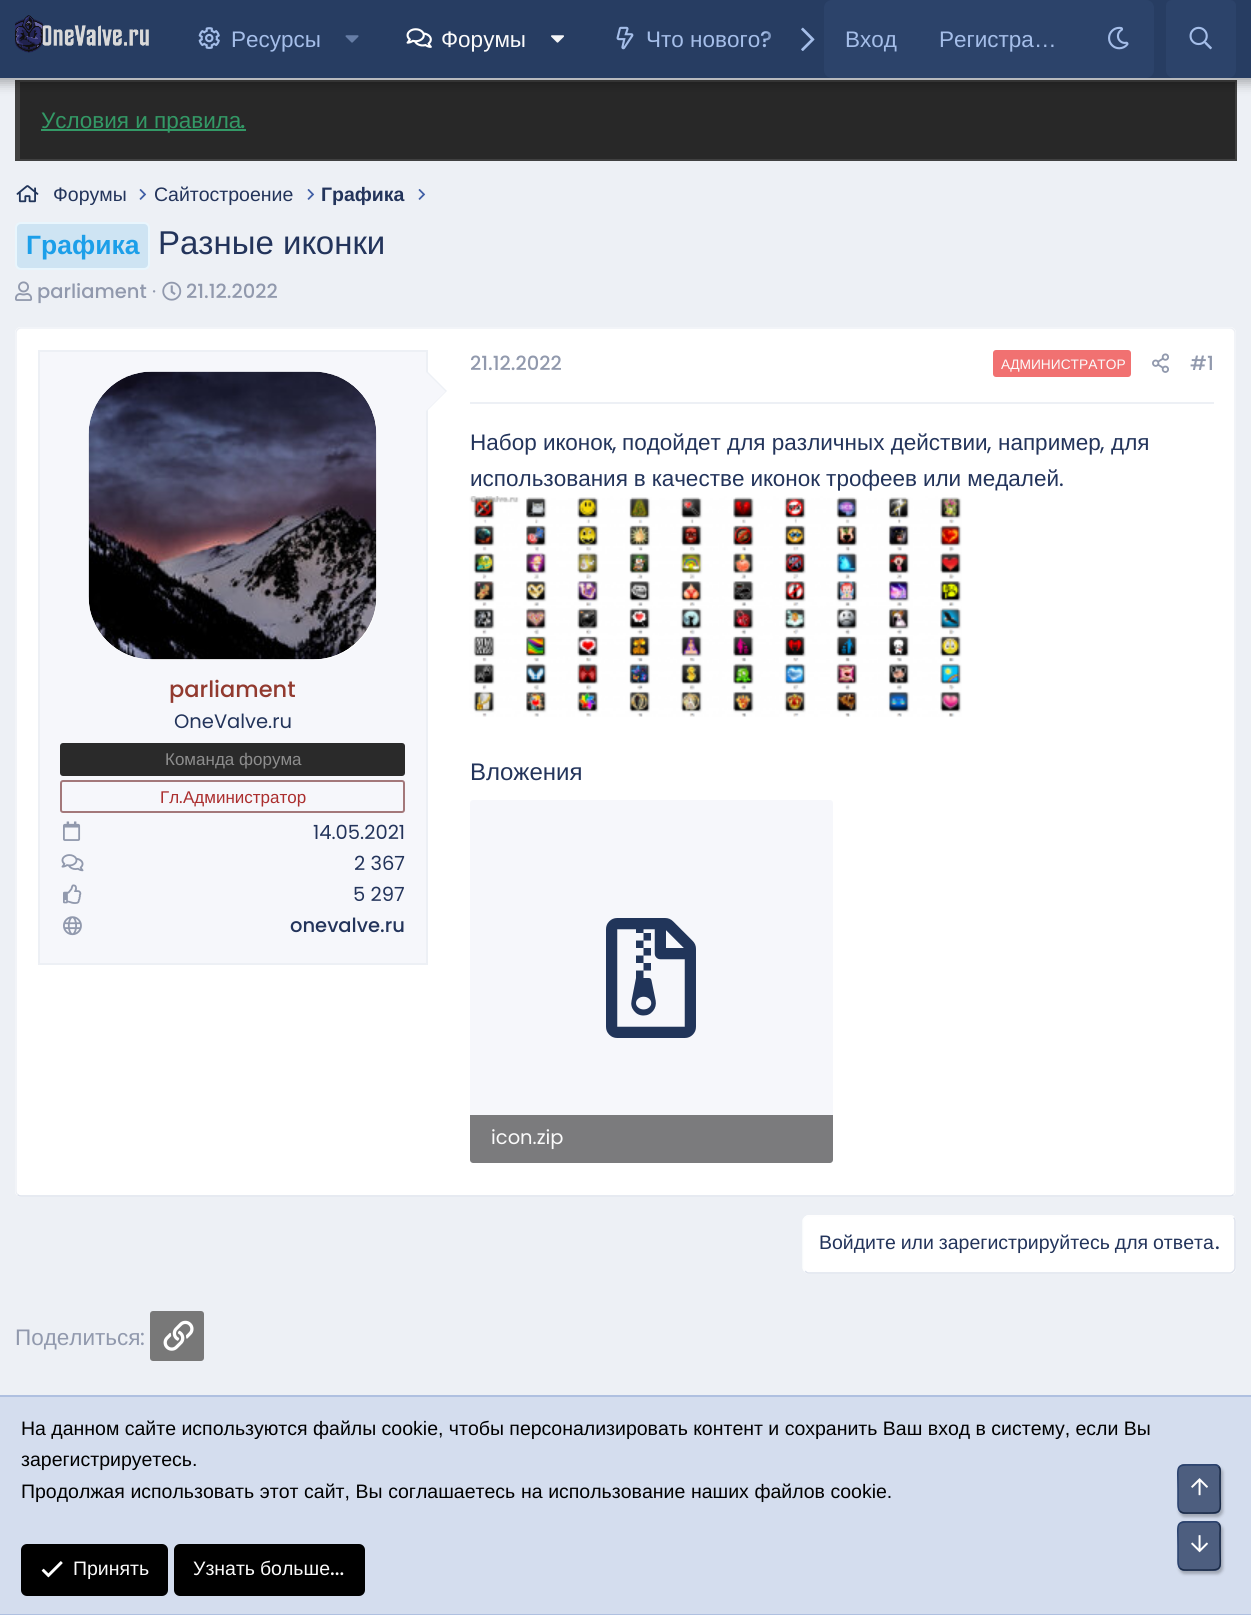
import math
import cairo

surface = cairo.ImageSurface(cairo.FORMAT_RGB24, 1251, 1615)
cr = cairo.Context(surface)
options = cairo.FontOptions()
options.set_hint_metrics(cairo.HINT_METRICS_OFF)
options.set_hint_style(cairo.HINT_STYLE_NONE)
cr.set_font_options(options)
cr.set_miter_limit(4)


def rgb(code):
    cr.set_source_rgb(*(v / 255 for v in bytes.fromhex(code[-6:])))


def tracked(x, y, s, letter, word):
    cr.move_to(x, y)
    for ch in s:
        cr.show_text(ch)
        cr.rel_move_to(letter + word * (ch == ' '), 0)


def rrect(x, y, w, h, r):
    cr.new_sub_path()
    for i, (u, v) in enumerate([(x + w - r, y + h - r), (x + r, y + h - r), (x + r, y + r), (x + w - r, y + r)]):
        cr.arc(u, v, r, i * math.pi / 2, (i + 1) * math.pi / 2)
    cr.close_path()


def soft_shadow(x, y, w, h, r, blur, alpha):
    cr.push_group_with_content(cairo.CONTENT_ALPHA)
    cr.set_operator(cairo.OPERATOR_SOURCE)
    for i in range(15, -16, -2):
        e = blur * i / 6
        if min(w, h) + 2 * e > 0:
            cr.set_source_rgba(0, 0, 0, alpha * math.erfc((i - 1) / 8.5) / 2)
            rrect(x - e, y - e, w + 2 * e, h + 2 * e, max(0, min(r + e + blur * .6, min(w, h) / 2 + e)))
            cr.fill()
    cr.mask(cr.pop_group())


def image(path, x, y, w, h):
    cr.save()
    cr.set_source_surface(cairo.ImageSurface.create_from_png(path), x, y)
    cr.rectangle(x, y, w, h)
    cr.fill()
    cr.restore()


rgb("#edf0f5")
cr.paint()
for x, y, w, h, color in [
    (20, 82, 1215, 77, "#282828"),
    (15, 80, 1221, 2, "#404040"),
    (1235, 80, 2, 81, "#404040"),
    (15, 159, 1221, 2, "#404040"),
    (15, 80, 5, 81, "#404040"),
]:
    rgb(color)
    cr.rectangle(x, y, w, h)
    cr.fill()
rgb("#000000")
soft_shadow(-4, -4, 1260, 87, 0, 6, 0.3)
rgb("#273d62")
cr.rectangle(0, 0, 1251, 78)
cr.fill()
image("img/1.png", 15, 15, 134, 38)
image("img/2.png", 198, 27, 22, 22)
image("img/3.png", 345, 35, 14, 8)
image("img/4.png", 406, 28, 26, 20)
image("img/5.png", 551, 35, 13, 8)
image("img/6.png", 616, 26, 18, 24)
image("img/7.png", 801, 27, 14, 24)
rgb("#2c436a")
rrect(824, 0, 330, 78, 8)
cr.fill()
image("img/8.png", 1108, 26, 21, 24)
cr.new_path()
cr.move_to(1172, 0)
cr.line_to(1230, 0)
cr.curve_to(1233.5, 0, 1236, 2.5, 1236, 6)
cr.line_to(1236, 70)
cr.curve_to(1236, 74.5, 1232.5, 78, 1228, 78)
cr.line_to(1174, 78)
cr.curve_to(1169.5, 78, 1166, 74.5, 1166, 70)
cr.line_to(1166, 6)
cr.curve_to(1166, 2.5, 1168.5, 0, 1172, 0)
cr.close_path()
cr.fill()
image("img/9.png", 1189, 26, 23, 24)
rgb("#339966")
cr.rectangle(41, 129, 205, 2)
cr.fill()
image("img/10.png", 16, 185, 23, 18)
image("img/11.png", 139, 189, 8, 11)
image("img/11.png", 307, 189, 8, 11)
image("img/11.png", 418, 189, 8, 11)
rgb("#cee4f3")
rrect(16, 223, 133, 46, 5)
cr.fill_preserve()
rgb("#e9f6fd")
cr.stroke()
image("img/12.png", 15, 281, 18, 20)
image("img/13.png", 162, 281, 20, 20)
rgb("#ffffff")
rrect(15, 327, 1221, 870, 6)
cr.fill()
cr.new_path()
cr.move_to(1233.5, 1194.5)
cr.curve_to(1232.5, 1195.5, 1231.5, 1196, 1230, 1196)
cr.line_to(21, 1196)
cr.curve_to(19.5, 1196, 18.5, 1195.5, 17.5, 1194.5)
rgb("#dde2ec")
cr.set_line_width(1.5)
cr.stroke()
cr.new_path()
cr.move_to(17.5, 1194.5)
cr.curve_to(16.5, 1193.5, 16, 1192.5, 16, 1191)
cr.line_to(16, 333)
cr.curve_to(16, 331.5, 16.5, 330.5, 17.5, 329.5)
cr.curve_to(18.5, 328.5, 19.5, 328, 21, 328)
cr.line_to(1230, 328)
cr.curve_to(1231.5, 328, 1232.5, 328.5, 1233.5, 329.5)
cr.curve_to(1234.5, 330.5, 1235, 331.5, 1235, 333)
cr.line_to(1235, 1191)
cr.curve_to(1235, 1192.5, 1234.5, 1193.5, 1233.5, 1194.5)
rgb("#edf0f5")
cr.stroke()
rgb("#f6f7fb")
cr.rectangle(39, 351, 388, 613)
cr.fill_preserve()
rgb("#edf0f5")
cr.set_line_width(2)
cr.stroke()
rgb("#ffffff")
rrect(89, 372, 288, 288, 63)
cr.fill()
image("img/14.png", 88, 371, 289, 289)
rgb("#edf0f5")
cr.new_path()
cr.move_to(426, 412)
cr.line_to(426, 370)
cr.line_to(447, 391)
cr.close_path()
cr.fill()
rgb("#f6f7fb")
cr.new_path()
cr.move_to(426, 411)
cr.line_to(426, 372)
cr.line_to(445.5, 391.5)
cr.close_path()
cr.fill()
rgb("#2a2a2a")
rrect(60, 743, 345, 33, 3)
cr.fill()
rrect(61, 781, 343, 31, 2)
rgb("#a3787a")
cr.stroke()
image("img/15.png", 63, 821, 18, 20)
image("img/16.png", 61, 854, 23, 18)
image("img/17.png", 63, 884, 19, 20)
image("img/18.png", 63, 916, 19, 20)
rgb("#edf0f5")
cr.rectangle(470, 402, 744, 2)
cr.fill()
rgb("#f17171")
rrect(993, 350, 138, 27, 3)
cr.fill()
image("img/19.png", 1152, 353, 17, 20)
image("img/20.png", 469, 496, 493, 221)
rgb("#f6f7fb")
rrect(470, 800, 363, 363, 3)
cr.fill()
image("img/21.png", 606, 918, 90, 120)
cr.set_source_rgba(0, 0, 0, 0.5)
cr.new_path()
cr.move_to(470, 1115)
cr.line_to(833, 1115)
cr.line_to(833, 1160)
cr.curve_to(833, 1161.5, 831.5, 1163, 830, 1163)
cr.line_to(473, 1163)
cr.curve_to(471.5, 1163, 470, 1161.5, 470, 1160)
cr.close_path()
cr.fill()
rgb("#ffffff")
rrect(803, 1215, 433, 59, 6)
cr.fill()
cr.new_path()
cr.move_to(1233.5, 1217.5)
cr.curve_to(1234.5, 1218.5, 1235, 1219.5, 1235, 1221)
cr.line_to(1235, 1267.5)
cr.curve_to(1235, 1269, 1234.5, 1270, 1233.5, 1271)
cr.curve_to(1232.5, 1272, 1231.5, 1273, 1230, 1273)
cr.line_to(808.5, 1273)
cr.curve_to(807, 1273, 806, 1272, 805, 1271)
rgb("#dde2ec")
cr.set_line_width(1.5)
cr.stroke()
cr.new_path()
cr.move_to(805, 1271)
cr.curve_to(804, 1270, 803, 1269, 803, 1267.5)
cr.line_to(803, 1221)
cr.curve_to(803, 1219.5, 804, 1218.5, 805, 1217.5)
cr.curve_to(806, 1216.5, 807, 1216, 808.5, 1216)
cr.line_to(1230, 1216)
cr.curve_to(1231.5, 1216, 1232.5, 1216.5, 1233.5, 1217.5)
rgb("#fdfefe")
cr.stroke()
rgb("#787878")
rrect(150, 1311, 54, 50, 3)
cr.fill()
image("img/22.png", 163, 1320, 31, 31)
for x, y, w, h, color in [
    (0, 1397, 1251, 217, "#d4ddee"),
    (0, 1395, 1251, 2, "#afc0e0"),
    (0, 1614, 1251, 1, "#afc0e0"),
]:
    rgb(color)
    cr.rectangle(x, y, w, h)
    cr.fill()
rgb("#000000")
rrect(22, 1545, 145, 50, 5)
cr.fill_preserve()
cr.set_line_width(2)
cr.stroke()
image("img/23.png", 41, 1561, 22, 17)
rrect(175, 1545, 189, 50, 5)
cr.fill_preserve()
cr.stroke()
cr.save()
cr.set_fill_rule(cairo.FILL_RULE_EVEN_ODD)
cr.new_path()
cr.move_to(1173, 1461)
cr.line_to(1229, 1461)
cr.line_to(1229, 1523)
cr.line_to(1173, 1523)
cr.close_path()
cr.move_to(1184, 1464)
cr.line_to(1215, 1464)
cr.curve_to(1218.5, 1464, 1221, 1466.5, 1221, 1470)
cr.line_to(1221, 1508)
cr.curve_to(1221, 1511.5, 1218.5, 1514, 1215, 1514)
cr.line_to(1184, 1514)
cr.curve_to(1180.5, 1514, 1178, 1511.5, 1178, 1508)
cr.line_to(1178, 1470)
cr.curve_to(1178, 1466.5, 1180.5, 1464, 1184, 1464)
cr.close_path()
cr.clip()
rgb("#000000")
soft_shadow(1179, 1467, 44, 50, 6, 1.5, 0.25)
cr.restore()
cr.set_source_rgba(0.129, 0.208, 0.353, 0.75)
rrect(1178, 1464, 43, 50, 6)
cr.fill()
cr.new_path()
cr.move_to(1218.5, 1466.5)
cr.curve_to(1221, 1469, 1220, 1473.5, 1220, 1476)
cr.line_to(1220, 1489)
cr.curve_to(1220, 1515, 1224.5, 1513, 1199, 1513)
cr.line_to(1189, 1513)
cr.curve_to(1186, 1513, 1182, 1513.5, 1180, 1511)
rgb("#1a2a47")
cr.set_line_width(1.5)
cr.stroke()
cr.new_path()
cr.move_to(1180, 1511)
cr.curve_to(1177.5, 1508.5, 1178, 1504, 1178, 1501)
cr.line_to(1178, 1489)
cr.curve_to(1178, 1462.5, 1174, 1465, 1199, 1465)
cr.line_to(1210, 1465)
cr.curve_to(1212.5, 1465, 1216.5, 1464, 1218.5, 1466.5)
rgb("#28406d")
cr.stroke()
image("img/24.png", 1191, 1478, 17, 18)
cr.save()
cr.set_fill_rule(cairo.FILL_RULE_EVEN_ODD)
cr.new_path()
cr.move_to(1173, 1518)
cr.line_to(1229, 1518)
cr.line_to(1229, 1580)
cr.line_to(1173, 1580)
cr.close_path()
cr.move_to(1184, 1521)
cr.line_to(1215, 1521)
cr.curve_to(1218.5, 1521, 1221, 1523.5, 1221, 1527)
cr.line_to(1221, 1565)
cr.curve_to(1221, 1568.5, 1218.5, 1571, 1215, 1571)
cr.line_to(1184, 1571)
cr.curve_to(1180.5, 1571, 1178, 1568.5, 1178, 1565)
cr.line_to(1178, 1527)
cr.curve_to(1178, 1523.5, 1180.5, 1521, 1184, 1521)
cr.close_path()
cr.clip()
rgb("#000000")
soft_shadow(1179, 1524, 44, 50, 6, 1.5, 0.25)
cr.restore()
cr.set_source_rgba(0.129, 0.208, 0.353, 0.75)
rrect(1178, 1521, 43, 50, 6)
cr.fill()
cr.new_path()
cr.move_to(1218.5, 1523.5)
cr.curve_to(1221, 1526, 1220, 1530.5, 1220, 1533)
cr.line_to(1220, 1546)
cr.curve_to(1220, 1572, 1224.5, 1570, 1199, 1570)
cr.line_to(1189, 1570)
cr.curve_to(1186, 1570, 1182, 1570.5, 1180, 1568)
rgb("#1a2a47")
cr.stroke()
cr.new_path()
cr.move_to(1180, 1568)
cr.curve_to(1177.5, 1565.5, 1178, 1561, 1178, 1558)
cr.line_to(1178, 1546)
cr.curve_to(1178, 1519.5, 1174, 1522, 1199, 1522)
cr.line_to(1210, 1522)
cr.curve_to(1212.5, 1522, 1216.5, 1521, 1218.5, 1523.5)
rgb("#28406d")
cr.stroke()
image("img/25.png", 1191, 1535, 17, 18)
cr.select_font_face("Liberation Sans")
cr.set_font_size(22.5)
rgb("#a5bee9")
cr.move_to(231, 47)
cr.show_text("Ресурсы")
rgb("#fbfbfb")
cr.move_to(441, 47)
cr.show_text("Форумы")
rgb("#a5bee9")
cr.move_to(646, 47)
cr.show_text("Что нового")
cr.select_font_face("Poppins Medium")
cr.move_to(760, 47)
cr.show_text("?")
gradient = cairo.LinearGradient(764, 39, 824, 39)
gradient.add_color_stop_rgba(0, 0.153, 0.239, 0.384, 0)
gradient.add_color_stop_rgba(0.33, 0.153, 0.239, 0.384, 1)
cr.set_source(gradient)
cr.rectangle(764, 31, 7, 16)
cr.fill()
cr.select_font_face("Liberation Sans")
rgb("#a5bee9")
cr.move_to(845, 47)
cr.show_text("Вход")
cr.move_to(939, 47)
cr.show_text("Регистра…")
rgb("#339966")
cr.move_to(41, 128)
cr.show_text("Условия и правила")
cr.select_font_face("Poppins Medium")
cr.move_to(240, 128)
cr.show_text(".")
cr.select_font_face("Liberation Sans")
cr.set_font_size(19.5)
rgb("#23345b")
cr.move_to(53, 201)
cr.show_text("Форумы")
cr.move_to(154, 201)
cr.show_text("Сайтостроение")
cr.select_font_face("Liberation Sans", cairo.FONT_SLANT_NORMAL, cairo.FONT_WEIGHT_BOLD)
cr.move_to(321, 201)
cr.show_text("Графика")
cr.set_font_size(26.5)
rgb("#1c9fe9")
cr.move_to(26, 254)
cr.show_text("Графика")
cr.select_font_face("Liberation Sans")
cr.set_font_size(33)
rgb("#23345b")
cr.move_to(158, 254)
cr.show_text("Разные иконки")
cr.select_font_face("Poppins Medium")
cr.set_font_size(19.5)
rgb("#9199ad")
cr.move_to(37, 298)
cr.show_text("parliament")
cr.select_font_face("Poppins")
cr.move_to(152, 298)
cr.show_text("·")
cr.select_font_face("Poppins Medium")
cr.move_to(186, 298)
cr.show_text("21.12.2022")
cr.set_font_size(22.5)
rgb("#923a2f")
cr.move_to(169, 697)
cr.show_text("parliament")
cr.select_font_face("Poppins")
cr.set_font_size(19.5)
rgb("#23345b")
cr.move_to(174, 728)
cr.show_text("OneValve.ru")
cr.select_font_face("Liberation Sans")
cr.set_font_size(17)
rgb("#8d8d8d")
cr.move_to(165, 765)
cr.show_text("Команда форума")
rgb("#ab2e2e")
cr.move_to(160, 803)
cr.show_text("Гл")
cr.select_font_face("Poppins")
cr.move_to(179, 803)
cr.show_text(".")
cr.select_font_face("Liberation Sans")
cr.move_to(183, 803)
cr.show_text("Администратор")
cr.select_font_face("Poppins")
cr.set_font_size(19.5)
rgb("#23345b")
for x, y, s in [
    (313, 839, "14.05.2021"),
    (354, 870, "2 367"),
    (353, 901, "5 297"),
]:
    cr.move_to(x, y)
    cr.show_text(s)
cr.select_font_face("Poppins Medium")
cr.move_to(290, 932)
cr.show_text("onevalve.ru")
rgb("#9199ad")
cr.move_to(470, 370)
cr.show_text("21.12.2022")
cr.select_font_face("Liberation Sans")
cr.set_font_size(13.75)
rgb("#fbfbfb")
cr.move_to(1001, 369)
cr.show_text("АДМИНИСТРАТОР")
cr.select_font_face("Poppins Medium")
cr.set_font_size(19.5)
rgb("#9199ad")
cr.move_to(1190, 370)
cr.show_text("#1")
cr.select_font_face("Liberation Sans")
cr.set_font_size(22.5)
rgb("#23345b")
cr.move_to(470, 450)
cr.show_text("Набор иконок")
cr.select_font_face("Poppins")
cr.move_to(612, 450)
cr.show_text(",")
cr.select_font_face("Liberation Sans")
cr.move_to(622, 450)
cr.show_text("подойдет для различных действии")
cr.select_font_face("Poppins")
cr.move_to(987, 450)
cr.show_text(",")
cr.select_font_face("Liberation Sans")
cr.move_to(998, 450)
cr.show_text("например")
cr.select_font_face("Poppins")
cr.move_to(1100, 450)
cr.show_text(",")
cr.select_font_face("Liberation Sans")
cr.move_to(1111, 450)
cr.show_text("для")
tracked(470, 486, "использования в качестве иконок трофеев или медалей", 0, -0.25)
cr.select_font_face("Poppins")
cr.move_to(1059, 486)
cr.show_text(".")
cr.select_font_face("Liberation Sans")
cr.set_font_size(24)
cr.move_to(470, 780)
cr.show_text("Вложения")
cr.select_font_face("Poppins")
cr.set_font_size(19.5)
rgb("#fbfbfb")
cr.move_to(491, 1144)
cr.show_text("icon.zip")
cr.select_font_face("Liberation Sans")
rgb("#23345b")
tracked(819, 1249, "Войдите или зарегистрируйтесь для ответа", 0, -0.5)
cr.select_font_face("Poppins Medium")
cr.move_to(1215, 1249)
cr.show_text(".")
cr.select_font_face("Liberation Sans")
cr.set_font_size(22.5)
rgb("#9199ad")
cr.move_to(15, 1345)
cr.show_text("Поделиться")
cr.select_font_face("Poppins")
cr.move_to(140, 1345)
cr.show_text(":")
cr.select_font_face("Liberation Sans")
cr.set_font_size(19.5)
rgb("#000000")
cr.move_to(21, 1435)
cr.show_text("На данном сайте используются файлы cookie, чтобы персонализировать контент и сохранить Ваш вход в систему, если Вы")
cr.move_to(21, 1466)
cr.show_text("зарегистрируетесь.")
tracked(21, 1498, "Продолжая использовать этот сайт, Вы соглашаетесь на использование наших файлов cookie.", 0, 0.25)
rgb("#fbfbfb")
cr.move_to(73, 1575)
cr.show_text("Принять")
tracked(193, 1575, "Узнать больше", 0, -0.5)
cr.select_font_face("Poppins Medium")
cr.move_to(330, 1575)
cr.show_text("...")
surface.write_to_png("page.png")
